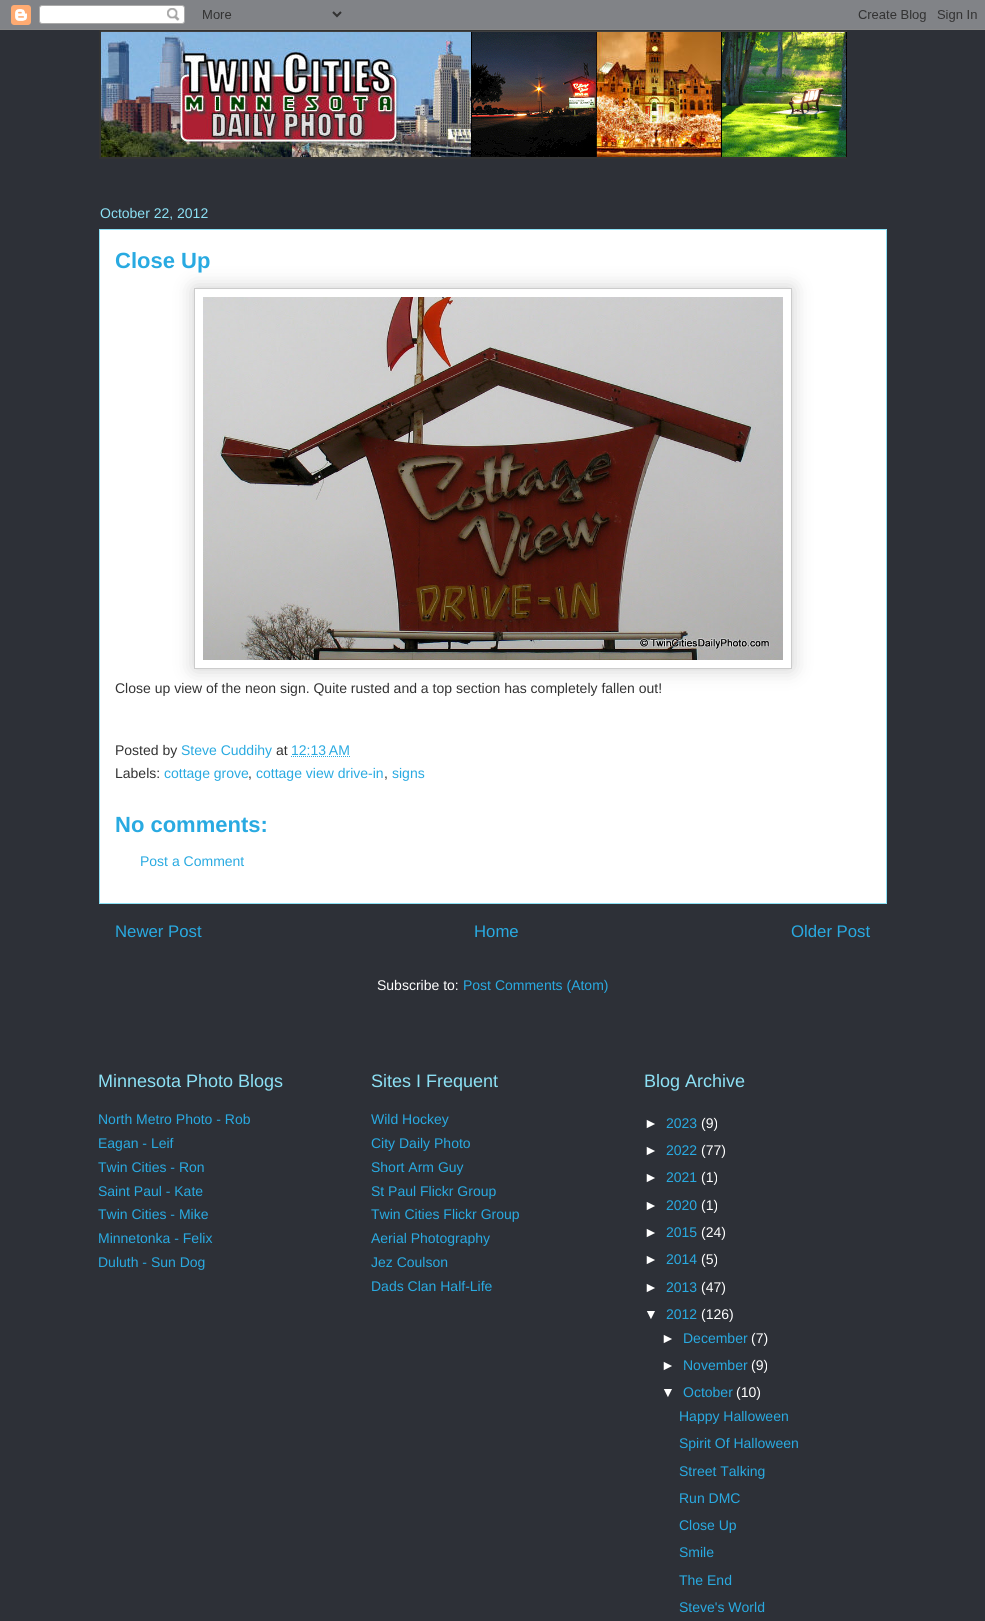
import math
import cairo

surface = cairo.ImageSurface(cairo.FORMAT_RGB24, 985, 1621)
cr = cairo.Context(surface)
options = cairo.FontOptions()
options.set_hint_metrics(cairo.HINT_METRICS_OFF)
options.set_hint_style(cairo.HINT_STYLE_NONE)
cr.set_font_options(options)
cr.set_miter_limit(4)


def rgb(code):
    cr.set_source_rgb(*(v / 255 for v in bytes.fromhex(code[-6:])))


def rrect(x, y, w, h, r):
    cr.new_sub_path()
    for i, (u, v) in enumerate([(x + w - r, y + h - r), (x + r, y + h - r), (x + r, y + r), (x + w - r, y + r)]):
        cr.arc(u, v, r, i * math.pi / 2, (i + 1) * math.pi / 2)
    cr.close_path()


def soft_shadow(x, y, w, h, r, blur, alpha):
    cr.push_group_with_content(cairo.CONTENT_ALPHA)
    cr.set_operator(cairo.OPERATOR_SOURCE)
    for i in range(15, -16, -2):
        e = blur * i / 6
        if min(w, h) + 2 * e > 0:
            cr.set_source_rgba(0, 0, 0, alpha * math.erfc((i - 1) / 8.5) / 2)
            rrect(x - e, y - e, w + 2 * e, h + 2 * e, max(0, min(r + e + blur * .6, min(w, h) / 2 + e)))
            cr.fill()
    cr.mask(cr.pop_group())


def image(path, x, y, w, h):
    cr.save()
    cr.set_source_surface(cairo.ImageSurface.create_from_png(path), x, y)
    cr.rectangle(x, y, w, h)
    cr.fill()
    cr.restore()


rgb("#2d3037")
cr.paint()
image("img/1.png", 0, 0, 985, 30)
image("img/2.png", 99, 30, 748, 129)
rgb("#ffffff")
cr.rectangle(99.5, 229.5, 787, 674)
cr.fill_preserve()
rgb("#8ce1f5")
cr.set_line_width(1)
cr.stroke()
cr.save()
cr.set_fill_rule(cairo.FILL_RULE_EVEN_ODD)
cr.new_path()
cr.move_to(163, 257)
cr.line_to(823, 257)
cr.line_to(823, 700)
cr.line_to(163, 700)
cr.close_path()
cr.move_to(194, 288)
cr.line_to(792, 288)
cr.line_to(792, 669)
cr.line_to(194, 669)
cr.close_path()
cr.clip()
rgb("#000000")
soft_shadow(194, 288, 598, 381, 0, 10, 0.2)
cr.restore()
cr.rectangle(194.5, 288.5, 597, 380)
rgb("#cccccc")
cr.stroke()
image("img/3.png", 203, 297, 580, 363)
cr.new_path()
cr.move_to(291, 756.5)
cr.line_to(350, 756.5)
rgb("#29aae1")
cr.set_dash([1, 1])
cr.stroke()
cr.select_font_face("Liberation Sans")
cr.set_font_size(14)
rgb("#8ce1f5")
cr.move_to(100, 218)
cr.show_text("October 22, 2012")
cr.select_font_face("Liberation Sans", cairo.FONT_SLANT_NORMAL, cairo.FONT_WEIGHT_BOLD)
cr.set_font_size(22)
rgb("#29aae1")
cr.move_to(115, 268)
cr.show_text("Close Up")
cr.select_font_face("Liberation Sans")
cr.set_font_size(14)
rgb("#333333")
cr.move_to(115, 693)
cr.show_text("Close up view of the neon sign. Quite rusted and a top section has completely fallen out!")
cr.move_to(115, 755)
cr.show_text("Posted by")
rgb("#29aae1")
cr.move_to(181, 755)
cr.show_text("Steve Cuddihy")
rgb("#333333")
cr.move_to(276, 755)
cr.show_text("at")
rgb("#29aae1")
cr.move_to(291, 755)
cr.show_text("12:13 AM")
rgb("#333333")
cr.move_to(115, 778)
cr.show_text("Labels:")
rgb("#29aae1")
cr.move_to(164, 778)
cr.show_text("cottage grove")
rgb("#333333")
cr.move_to(248, 778)
cr.show_text(",")
rgb("#29aae1")
cr.move_to(256, 778)
cr.show_text("cottage view drive-in")
rgb("#333333")
cr.move_to(384, 778)
cr.show_text(",")
rgb("#29aae1")
cr.move_to(392, 778)
cr.show_text("signs")
cr.select_font_face("Liberation Sans", cairo.FONT_SLANT_NORMAL, cairo.FONT_WEIGHT_BOLD)
cr.set_font_size(22)
cr.move_to(115, 832)
cr.show_text("No comments:")
cr.select_font_face("Liberation Sans")
cr.set_font_size(14)
cr.move_to(140, 866)
cr.show_text("Post a Comment")
cr.set_font_size(16.75)
for x, y, s in [
    (115, 937, "Newer Post"),
    (474, 937, "Home"),
    (791, 937, "Older Post"),
]:
    cr.move_to(x, y)
    cr.show_text(s)
cr.set_font_size(14)
rgb("#ffffff")
cr.move_to(377, 990)
cr.show_text("Subscribe to:")
rgb("#29aae1")
cr.move_to(463, 990)
cr.show_text("Post Comments (Atom)")
cr.set_font_size(18)
rgb("#8ce1f5")
cr.move_to(98, 1087)
cr.show_text("Minnesota Photo Blogs")
cr.set_font_size(14)
rgb("#29aae1")
for x, y, s in [
    (98, 1124, "North Metro Photo - Rob"),
    (98, 1148, "Eagan - Leif"),
    (98, 1172, "Twin Cities - Ron"),
    (98, 1196, "Saint Paul - Kate"),
    (98, 1219, "Twin Cities - Mike"),
    (98, 1243, "Minnetonka - Felix"),
    (98, 1267, "Duluth - Sun Dog"),
]:
    cr.move_to(x, y)
    cr.show_text(s)
cr.set_font_size(18)
rgb("#8ce1f5")
cr.move_to(371, 1087)
cr.show_text("Sites I Frequent")
cr.set_font_size(14)
rgb("#29aae1")
for x, y, s in [
    (371, 1124, "Wild Hockey"),
    (371, 1148, "City Daily Photo"),
    (371, 1172, "Short Arm Guy"),
    (371, 1196, "St Paul Flickr Group"),
    (371, 1219, "Twin Cities Flickr Group"),
    (371, 1243, "Aerial Photography"),
    (371, 1267, "Jez Coulson"),
    (371, 1291, "Dads Clan Half-Life"),
]:
    cr.move_to(x, y)
    cr.show_text(s)
cr.set_font_size(18)
rgb("#8ce1f5")
cr.move_to(644, 1087)
cr.show_text("Blog Archive")
cr.set_font_size(14)
rgb("#ffffff")
cr.move_to(644, 1128)
cr.show_text("►")
rgb("#29aae1")
cr.move_to(666, 1128)
cr.show_text("2023")
rgb("#ffffff")
cr.move_to(701, 1128)
cr.show_text("(9)")
cr.move_to(644, 1155)
cr.show_text("►")
rgb("#29aae1")
cr.move_to(666, 1155)
cr.show_text("2022")
rgb("#ffffff")
cr.move_to(701, 1155)
cr.show_text("(77)")
cr.move_to(644, 1182)
cr.show_text("►")
rgb("#29aae1")
cr.move_to(666, 1182)
cr.show_text("2021")
rgb("#ffffff")
cr.move_to(701, 1182)
cr.show_text("(1)")
cr.move_to(644, 1210)
cr.show_text("►")
rgb("#29aae1")
cr.move_to(666, 1210)
cr.show_text("2020")
rgb("#ffffff")
cr.move_to(701, 1210)
cr.show_text("(1)")
cr.move_to(644, 1237)
cr.show_text("►")
rgb("#29aae1")
cr.move_to(666, 1237)
cr.show_text("2015")
rgb("#ffffff")
cr.move_to(701, 1237)
cr.show_text("(24)")
cr.move_to(644, 1264)
cr.show_text("►")
rgb("#29aae1")
cr.move_to(666, 1264)
cr.show_text("2014")
rgb("#ffffff")
cr.move_to(701, 1264)
cr.show_text("(5)")
cr.move_to(644, 1292)
cr.show_text("►")
rgb("#29aae1")
cr.move_to(666, 1292)
cr.show_text("2013")
rgb("#ffffff")
cr.move_to(701, 1292)
cr.show_text("(47)")
cr.move_to(644, 1319)
cr.show_text("▼")
rgb("#29aae1")
cr.move_to(666, 1319)
cr.show_text("2012")
rgb("#ffffff")
cr.move_to(701, 1319)
cr.show_text("(126)")
cr.move_to(661, 1343)
cr.show_text("►")
rgb("#29aae1")
cr.move_to(683, 1343)
cr.show_text("December")
rgb("#ffffff")
cr.move_to(751, 1343)
cr.show_text("(7)")
cr.move_to(661, 1370)
cr.show_text("►")
rgb("#29aae1")
cr.move_to(683, 1370)
cr.show_text("November")
rgb("#ffffff")
cr.move_to(751, 1370)
cr.show_text("(9)")
cr.move_to(661, 1397)
cr.show_text("▼")
rgb("#29aae1")
cr.move_to(683, 1397)
cr.show_text("October")
rgb("#ffffff")
cr.move_to(736, 1397)
cr.show_text("(10)")
rgb("#29aae1")
for x, y, s in [
    (679, 1421, "Happy Halloween"),
    (679, 1448, "Spirit Of Halloween"),
    (679, 1476, "Street Talking"),
    (679, 1503, "Run DMC"),
    (679, 1530, "Close Up"),
    (679, 1557, "Smile"),
    (679, 1585, "The End"),
    (679, 1612, "Steve's World"),
]:
    cr.move_to(x, y)
    cr.show_text(s)
surface.write_to_png("page.png")
